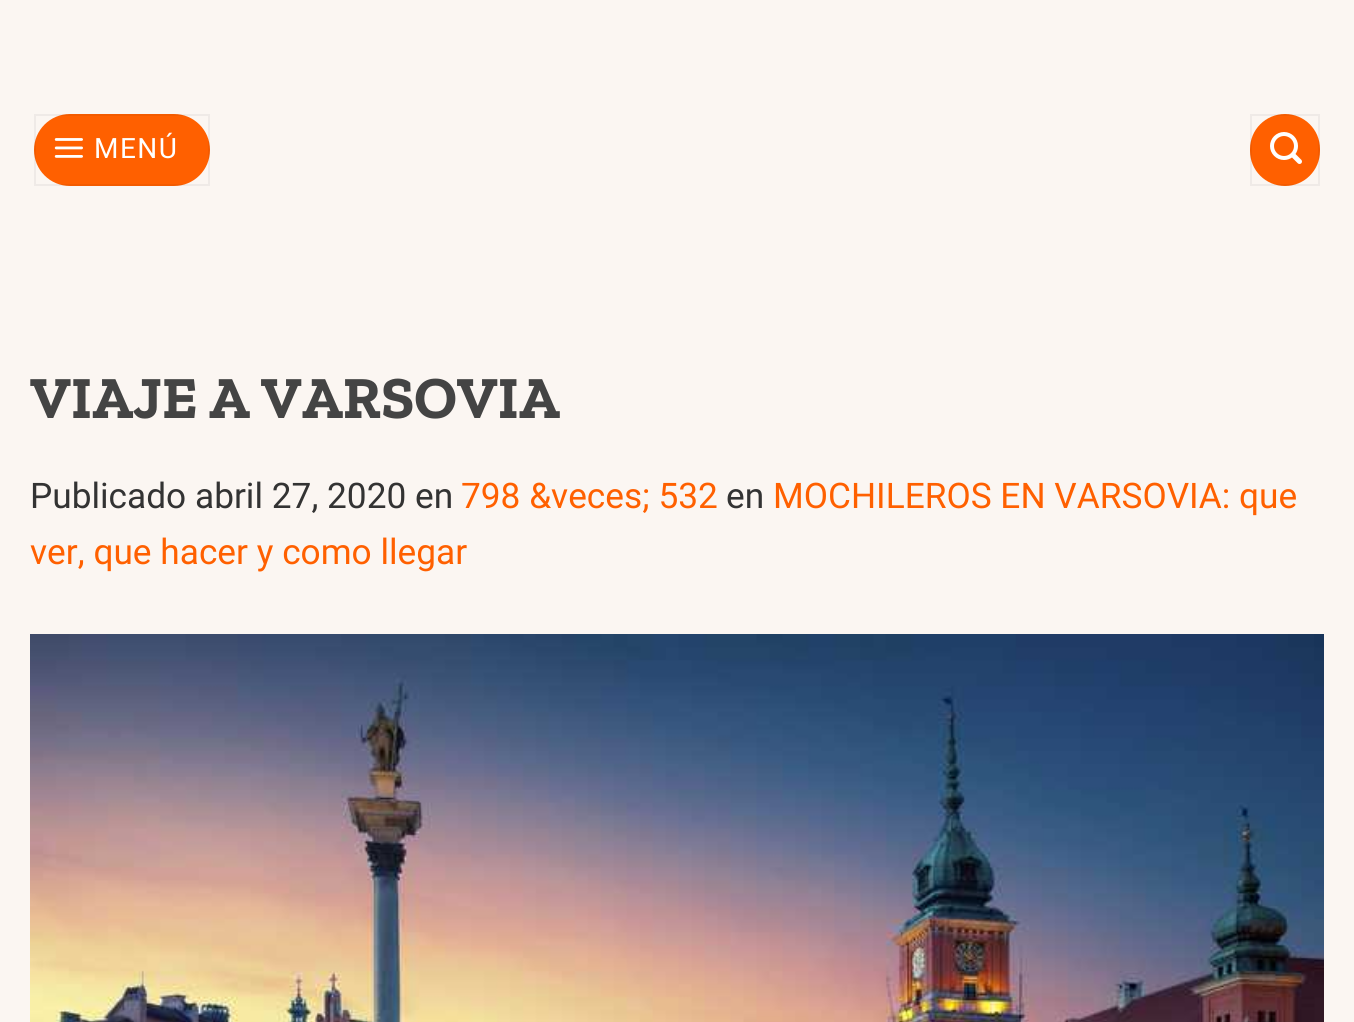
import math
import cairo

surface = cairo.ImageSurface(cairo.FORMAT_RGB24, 1354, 1022)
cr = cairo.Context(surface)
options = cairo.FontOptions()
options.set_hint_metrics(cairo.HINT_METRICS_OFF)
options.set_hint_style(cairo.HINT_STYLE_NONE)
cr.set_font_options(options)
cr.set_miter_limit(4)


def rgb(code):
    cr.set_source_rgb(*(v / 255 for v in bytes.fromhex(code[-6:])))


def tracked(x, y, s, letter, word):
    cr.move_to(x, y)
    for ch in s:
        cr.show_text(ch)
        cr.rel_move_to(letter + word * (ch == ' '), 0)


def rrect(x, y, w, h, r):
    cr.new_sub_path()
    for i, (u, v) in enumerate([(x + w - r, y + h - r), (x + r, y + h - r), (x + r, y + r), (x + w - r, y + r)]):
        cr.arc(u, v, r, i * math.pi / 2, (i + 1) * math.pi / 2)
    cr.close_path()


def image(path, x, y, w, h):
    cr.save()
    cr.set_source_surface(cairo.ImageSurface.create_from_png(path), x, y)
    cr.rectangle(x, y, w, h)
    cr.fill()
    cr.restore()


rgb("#fbf6f2")
cr.paint()
rgb("#ff6000")
rrect(34, 114, 176, 72, 36)
cr.fill()
cr.rectangle(35, 115, 174, 70)
cr.set_source_rgba(0, 0, 0, 0.05)
cr.stroke()
image("img/1.png", 54, 138, 29, 20)
rgb("#ff6000")
rrect(1250, 114, 70, 72, 35)
cr.fill()
cr.rectangle(1251, 115, 68, 70)
cr.set_source_rgba(0, 0, 0, 0.05)
cr.stroke()
image("img/2.png", 1270, 132, 32, 32)
image("img/3.png", 30, 634, 1294, 388)
cr.select_font_face("Roboto")
cr.set_font_size(28)
rgb("#ffffff")
tracked(94, 158, "MENÚ", 1.5, 0)
cr.select_font_face("Zilla Slab", cairo.FONT_SLANT_NORMAL, cairo.FONT_WEIGHT_BOLD)
cr.set_font_size(59.75)
rgb("#444444")
cr.move_to(30, 418)
cr.show_text("VIAJE A VARSOVIA")
cr.select_font_face("Roboto")
cr.set_font_size(35.25)
rgb("#333333")
cr.move_to(30, 508)
cr.show_text("Publicado abril 27, 2020 en")
rgb("#ff6000")
cr.move_to(461, 508)
cr.show_text("798 &veces; 532")
rgb("#333333")
cr.move_to(726, 508)
cr.show_text("en")
rgb("#ff6000")
cr.move_to(773, 508)
cr.show_text("MOCHILEROS EN VARSOVIA: que")
cr.move_to(30, 564)
cr.show_text("ver, que hacer y como llegar")
surface.write_to_png("page.png")
